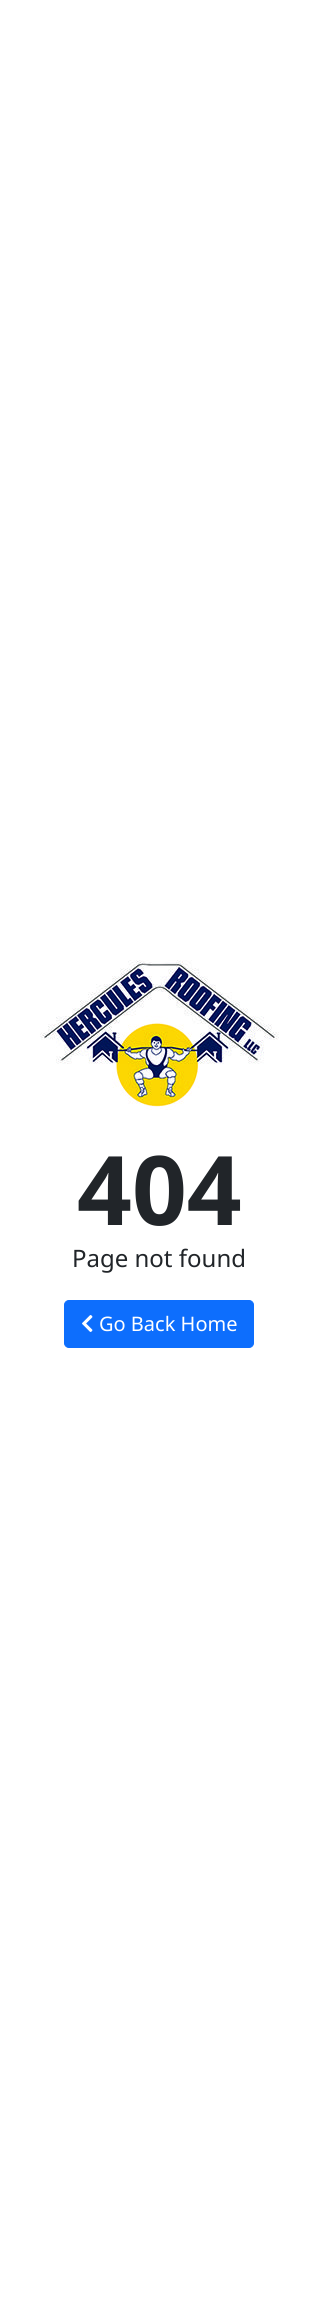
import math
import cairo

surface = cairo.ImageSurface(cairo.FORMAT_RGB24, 318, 2308)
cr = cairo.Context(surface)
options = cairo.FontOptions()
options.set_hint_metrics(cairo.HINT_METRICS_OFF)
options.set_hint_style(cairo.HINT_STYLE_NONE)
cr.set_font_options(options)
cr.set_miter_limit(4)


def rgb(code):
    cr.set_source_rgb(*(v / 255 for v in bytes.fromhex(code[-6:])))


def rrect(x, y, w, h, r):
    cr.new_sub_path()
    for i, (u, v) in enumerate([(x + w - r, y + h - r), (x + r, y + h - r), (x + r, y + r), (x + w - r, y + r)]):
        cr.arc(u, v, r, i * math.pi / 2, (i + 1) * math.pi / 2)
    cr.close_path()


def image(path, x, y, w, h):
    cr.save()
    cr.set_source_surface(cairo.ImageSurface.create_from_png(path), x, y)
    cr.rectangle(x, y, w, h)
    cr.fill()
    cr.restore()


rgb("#ffffff")
cr.paint()
image("img/1.png", 40, 960, 239, 150)
rgb("#0d6efd")
rrect(64.5, 1300.5, 189, 47, 4.5)
cr.fill_preserve()
cr.set_line_width(1)
cr.stroke()
image("img/2.png", 82, 1315, 11, 17)
cr.select_font_face("Noto Sans", cairo.FONT_SLANT_NORMAL, cairo.FONT_WEIGHT_BOLD)
cr.set_font_size(96)
rgb("#212529")
cr.move_to(77, 1225)
cr.show_text("404")
cr.select_font_face("Noto Sans")
cr.set_font_size(24)
cr.move_to(72, 1267)
cr.show_text("Page not found")
cr.set_font_size(20)
rgb("#ffffff")
cr.move_to(99, 1331)
cr.show_text("Go Back Home")
surface.write_to_png("page.png")
